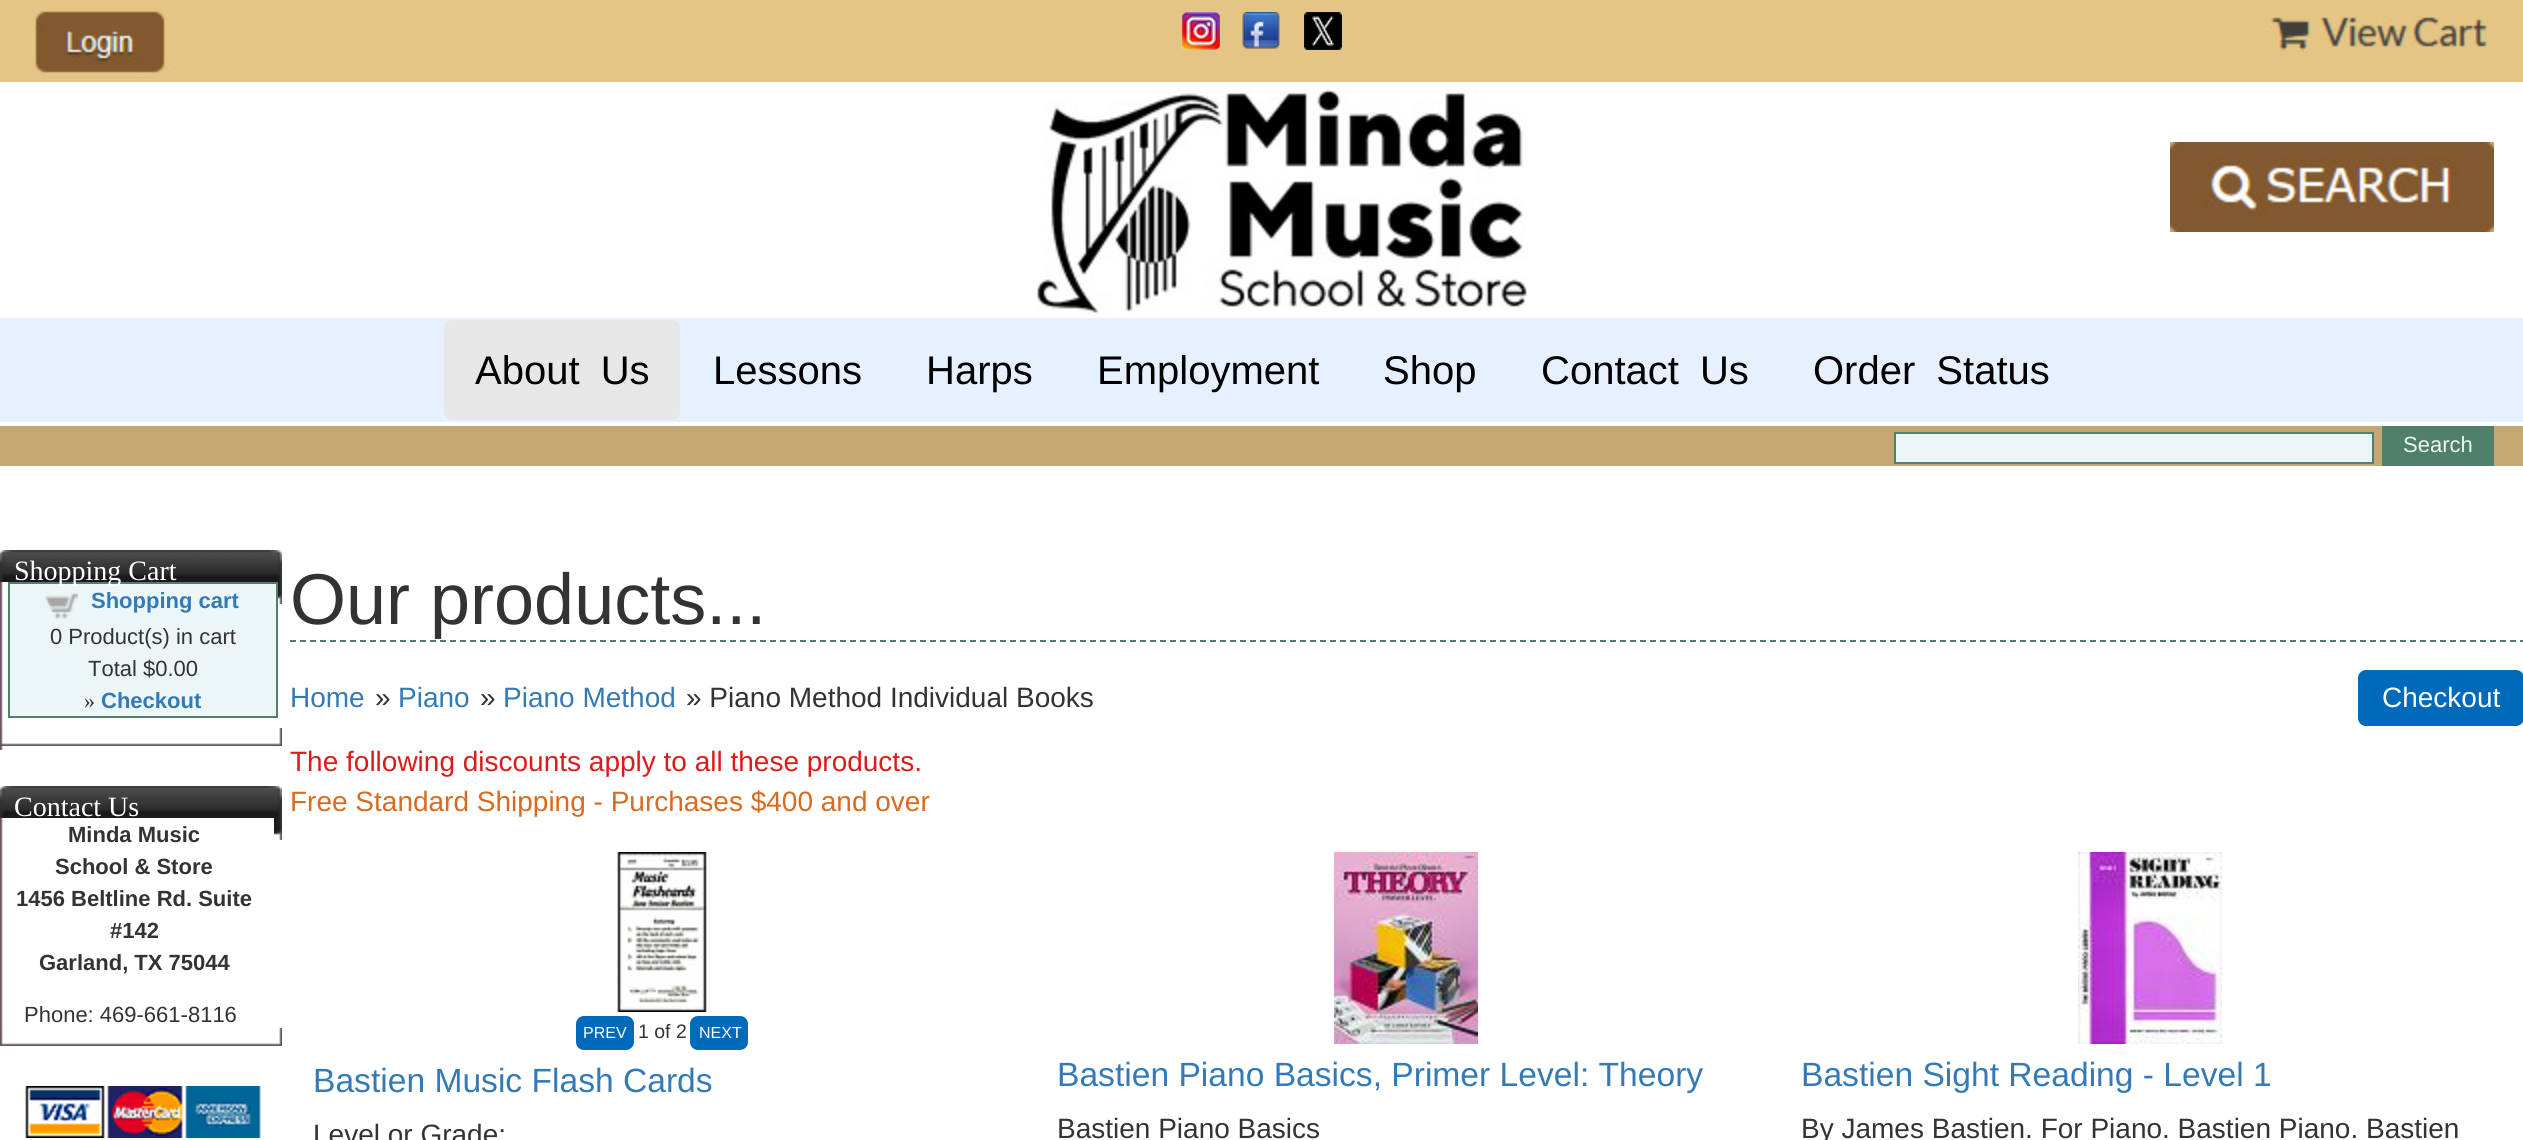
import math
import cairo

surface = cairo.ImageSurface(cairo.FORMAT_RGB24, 2523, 1140)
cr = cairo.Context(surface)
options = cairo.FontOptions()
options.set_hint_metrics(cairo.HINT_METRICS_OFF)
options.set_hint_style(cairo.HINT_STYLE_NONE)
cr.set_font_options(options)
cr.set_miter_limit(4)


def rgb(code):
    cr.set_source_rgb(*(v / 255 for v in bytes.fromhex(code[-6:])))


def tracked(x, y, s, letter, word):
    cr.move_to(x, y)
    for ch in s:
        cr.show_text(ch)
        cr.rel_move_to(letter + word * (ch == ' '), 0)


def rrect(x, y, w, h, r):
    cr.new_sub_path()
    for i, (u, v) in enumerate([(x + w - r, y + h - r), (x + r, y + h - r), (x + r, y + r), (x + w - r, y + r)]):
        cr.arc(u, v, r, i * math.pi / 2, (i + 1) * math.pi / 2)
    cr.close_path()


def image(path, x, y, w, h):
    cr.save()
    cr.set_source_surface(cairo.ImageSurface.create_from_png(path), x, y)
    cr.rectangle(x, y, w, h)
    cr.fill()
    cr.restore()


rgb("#ffffff")
cr.paint()
rgb("#e4c585")
cr.rectangle(0, 0, 2523, 82)
cr.fill()
image("img/1.png", 30, 8, 140, 70)
image("img/2.png", 1182, 12, 38, 38)
image("img/3.png", 1242, 12, 38, 37)
image("img/4.png", 1304, 12, 38, 38)
image("img/5.png", 2264, 16, 224, 38)
image("img/6.png", 1036, 88, 491, 227)
image("img/7.png", 2170, 142, 324, 90)
rgb("#e7f0ff")
cr.rectangle(0, 318, 2523, 104)
cr.fill()
rgb("#e7e7e7")
rrect(444, 320, 236, 100, 8)
cr.fill()
rgb("#c4a974")
cr.rectangle(0, 426, 2523, 40)
cr.fill()
rgb("#ecf6f7")
cr.rectangle(1895, 433, 478, 30)
cr.fill_preserve()
rgb("#50806a")
cr.stroke()
cr.rectangle(2382, 426, 112, 40)
cr.fill()
image("img/8.png", 0, 550, 282, 54)
image("img/9.png", 0, 582, 274, 168)
for x, y, w, h, color in [
    (8, 582, 270, 2, "#50806a"),
    (276, 582, 2, 136, "#50806a"),
    (8, 716, 270, 2, "#50806a"),
    (8, 582, 2, 136, "#50806a"),
    (10, 584, 266, 132, "#ecf6f7"),
]:
    rgb(color)
    cr.rectangle(x, y, w, h)
    cr.fill()
image("img/10.png", 46, 593, 32, 26)
image("img/11.png", 1, 728, 281, 18)
image("img/8.png", 0, 786, 282, 54)
image("img/12.png", 0, 818, 274, 210)
image("img/13.png", 0, 1028, 282, 18)
image("img/14.png", 25, 1086, 236, 52)
cr.new_path()
cr.move_to(290, 641)
cr.line_to(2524, 641)
rgb("#50806a")
cr.set_dash([6, 4])
cr.stroke()
rgb("#006aba")
rrect(2358, 670, 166, 56, 8)
cr.fill()
image("img/15.png", 617, 852, 90, 160)
rrect(576, 1016, 58, 34, 8)
cr.fill()
rrect(690, 1016, 58, 34, 8)
cr.fill()
image("img/16.png", 1334, 852, 144, 192)
image("img/17.png", 2078, 852, 144, 192)
cr.select_font_face("Liberation Sans")
cr.set_font_size(40)
rgb("#000000")
tracked(475, 384, "About Us", 0, 10)
for x, y, s in [
    (713, 384, "Lessons"),
    (926, 384, "Harps"),
    (1097, 384, "Employment"),
    (1383, 384, "Shop"),
]:
    cr.move_to(x, y)
    cr.show_text(s)
tracked(1541, 384, "Contact Us", 0, 10)
tracked(1813, 384, "Order Status", 0, 10)
cr.set_font_size(22)
rgb("#ecf6f7")
cr.move_to(2403, 452)
cr.show_text("Search")
cr.select_font_face("Liberation Serif")
cr.set_font_size(28)
rgb("#ffffff")
cr.move_to(14, 580)
cr.show_text("Shopping Cart")
cr.select_font_face("Liberation Sans", cairo.FONT_SLANT_NORMAL, cairo.FONT_WEIGHT_BOLD)
cr.set_font_size(22)
rgb("#337ab7")
cr.move_to(91, 608)
cr.show_text("Shopping cart")
cr.select_font_face("Liberation Sans")
rgb("#333333")
cr.move_to(50, 644)
cr.show_text("0 Product(s) in cart")
cr.move_to(88, 676)
cr.show_text("Total $0.00")
cr.select_font_face("Liberation Serif")
cr.move_to(84, 708)
cr.show_text("»")
cr.select_font_face("Liberation Sans", cairo.FONT_SLANT_NORMAL, cairo.FONT_WEIGHT_BOLD)
rgb("#337ab7")
cr.move_to(101, 708)
cr.show_text("Checkout")
cr.select_font_face("Liberation Serif")
cr.set_font_size(28)
rgb("#ffffff")
cr.move_to(14, 816)
cr.show_text("Contact Us")
cr.select_font_face("Liberation Sans", cairo.FONT_SLANT_NORMAL, cairo.FONT_WEIGHT_BOLD)
cr.set_font_size(22)
rgb("#333333")
for x, y, s in [
    (68, 842, "Minda Music"),
    (55, 874, "School & Store"),
    (16, 906, "1456 Beltline Rd. Suite"),
    (110, 938, "#142"),
    (39, 970, "Garland, TX 75044"),
]:
    cr.move_to(x, y)
    cr.show_text(s)
cr.select_font_face("Liberation Sans")
cr.move_to(24, 1022)
cr.show_text("Phone: 469-661-8116")
cr.set_font_size(72)
cr.move_to(290, 624)
cr.show_text("Our products...")
cr.set_font_size(28)
rgb("#337ab7")
cr.move_to(290, 707)
cr.show_text("Home")
rgb("#333333")
cr.move_to(375, 707)
cr.show_text("»")
rgb("#337ab7")
cr.move_to(398, 707)
cr.show_text("Piano")
rgb("#333333")
cr.move_to(480, 707)
cr.show_text("»")
rgb("#337ab7")
cr.move_to(503, 707)
cr.show_text("Piano Method")
rgb("#333333")
cr.move_to(686, 707)
cr.show_text("» Piano Method Individual Books")
rgb("#ffffff")
cr.move_to(2382, 707)
cr.show_text("Checkout")
rgb("#df1a1a")
cr.move_to(290, 771)
cr.show_text("The following discounts apply to all these products.")
rgb("#da6a1e")
cr.move_to(290, 811)
cr.show_text("Free Standard Shipping - Purchases $400 and over")
cr.set_font_size(16)
rgb("#ffffff")
cr.move_to(583, 1038)
cr.show_text("PREV")
cr.set_font_size(19.5)
rgb("#333333")
cr.move_to(638, 1038)
cr.show_text("1 of 2")
cr.set_font_size(16)
rgb("#ffffff")
cr.move_to(699, 1038)
cr.show_text("NEXT")
cr.set_font_size(33.6)
rgb("#337ab7")
cr.move_to(313, 1092)
cr.show_text("Bastien Music Flash Cards")
cr.set_font_size(28)
rgb("#333333")
cr.move_to(313, 1144)
cr.show_text("Level or Grade:")
cr.set_font_size(33.6)
rgb("#337ab7")
cr.move_to(1057, 1086)
cr.show_text("Bastien Piano Basics, Primer Level: Theory")
cr.set_font_size(28)
rgb("#333333")
cr.move_to(1057, 1138)
cr.show_text("Bastien Piano Basics")
cr.set_font_size(33.6)
rgb("#337ab7")
cr.move_to(1801, 1086)
cr.show_text("Bastien Sight Reading - Level 1")
cr.set_font_size(28)
rgb("#333333")
cr.move_to(1801, 1138)
cr.show_text("By James Bastien. For Piano. Bastien Piano. Bastien")
surface.write_to_png("page.png")
